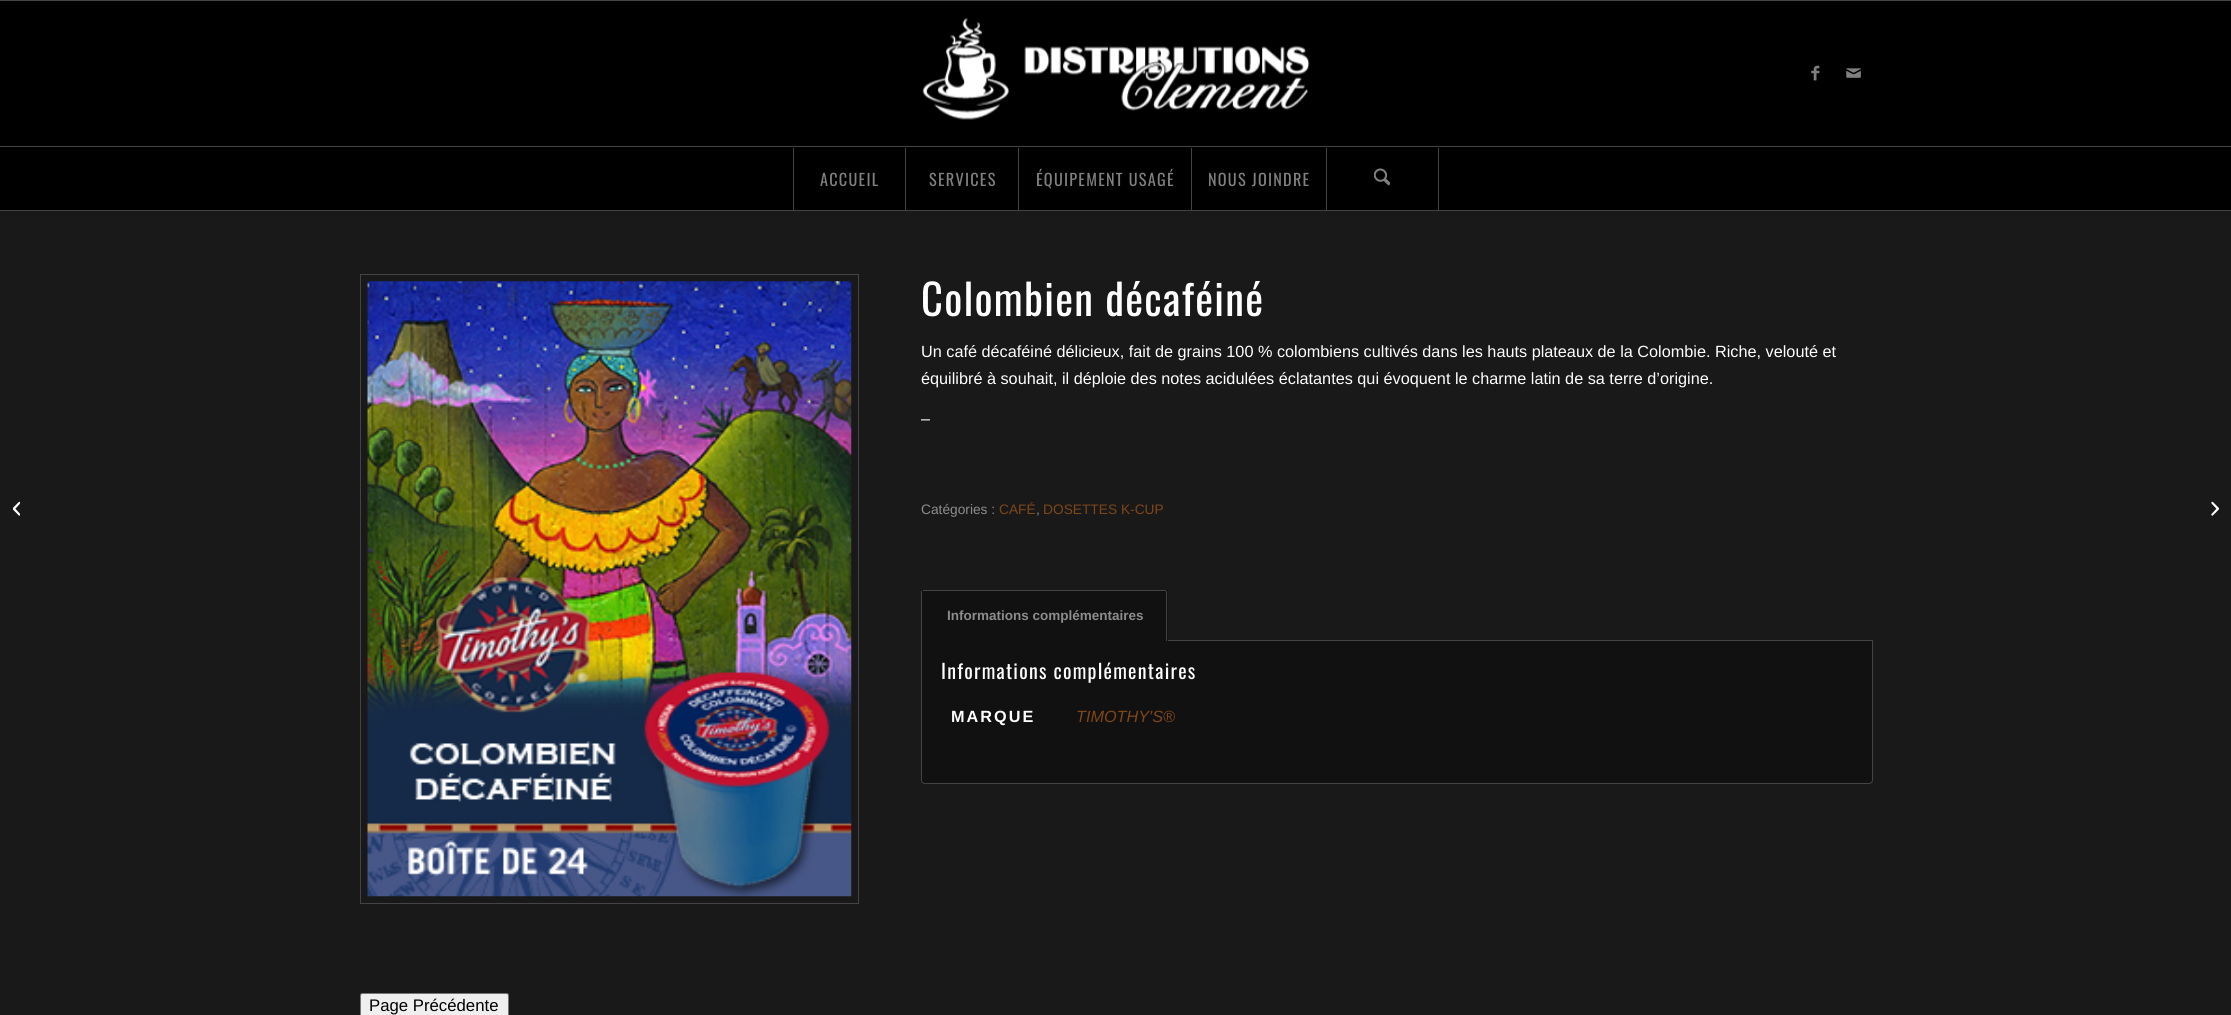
import math
import cairo

surface = cairo.ImageSurface(cairo.FORMAT_RGB24, 2231, 1015)
cr = cairo.Context(surface)
options = cairo.FontOptions()
options.set_hint_metrics(cairo.HINT_METRICS_OFF)
options.set_hint_style(cairo.HINT_STYLE_NONE)
cr.set_font_options(options)
cr.set_miter_limit(4)


def rgb(code):
    cr.set_source_rgb(*(v / 255 for v in bytes.fromhex(code[-6:])))


def tracked(x, y, s, letter, word):
    cr.move_to(x, y)
    for ch in s:
        cr.show_text(ch)
        cr.rel_move_to(letter + word * (ch == ' '), 0)


def rrect(x, y, w, h, r):
    cr.new_sub_path()
    for i, (u, v) in enumerate([(x + w - r, y + h - r), (x + r, y + h - r), (x + r, y + r), (x + w - r, y + r)]):
        cr.arc(u, v, r, i * math.pi / 2, (i + 1) * math.pi / 2)
    cr.close_path()


def image(path, x, y, w, h):
    cr.save()
    cr.set_source_surface(cairo.ImageSurface.create_from_png(path), x, y)
    cr.rectangle(x, y, w, h)
    cr.fill()
    cr.restore()


rgb("#000000")
cr.paint()
rgb("#444444")
cr.rectangle(0, 0, 2231, 1)
cr.fill()
cr.rectangle(0, 210, 2231, 1)
cr.fill()
image("img/1.png", 922, 18, 388, 102)
image("img/2.png", 1811, 65, 9, 16)
image("img/3.png", 1846, 68, 15, 10)
for x, y, w, h, color in [
    (0, 146, 2231, 1, "#444444"),
    (793, 148, 1, 62, "#444444"),
    (905, 148, 1, 62, "#444444"),
    (1018, 148, 1, 62, "#444444"),
    (1191, 148, 1, 62, "#444444"),
    (1438, 148, 1, 62, "#444444"),
    (1326, 148, 1, 62, "#444444"),
]:
    rgb(color)
    cr.rectangle(x, y, w, h)
    cr.fill()
image("img/4.png", 1374, 168, 16, 18)
rgb("#191919")
cr.rectangle(0, 211, 2231, 804)
cr.fill()
rgb("#111111")
cr.new_path()
cr.move_to(921.5, 640.5)
cr.line_to(1872.5, 640.5)
cr.line_to(1872.5, 780)
cr.curve_to(1872.5, 782, 1871, 783.5, 1869, 783.5)
cr.line_to(925, 783.5)
cr.curve_to(923, 783.5, 921.5, 782, 921.5, 780)
cr.close_path()
cr.fill_preserve()
rgb("#444444")
cr.set_line_width(1)
cr.stroke()
for x, y, w, h, color in [
    (921, 590, 247, 51, "#111111"),
    (923, 590, 243, 1, "#444444"),
    (1166, 591, 1, 50, "#444444"),
    (921, 591, 1, 50, "#444444"),
]:
    rgb(color)
    cr.rectangle(x, y, w, h)
    cr.fill()
cr.rectangle(360.5, 274.5, 498, 629)
cr.stroke()
image("img/5.png", 367, 281, 485, 616)
rgb("#efefef")
rrect(360.5, 993.5, 148, 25, 2)
cr.fill_preserve()
rgb("#767676")
cr.stroke()
image("img/6.png", 13, 501, 7, 15)
image("img/7.png", 2211, 501, 8, 15)
cr.select_font_face("Oswald")
cr.set_font_size(16.25)
rgb("#808080")
for x, y, s in [
    (820, 186, "ACCUEIL"),
    (929, 186, "SERVICES"),
    (1036, 186, "ÉQUIPEMENT USAGÉ"),
    (1208, 186, "NOUS JOINDRE"),
]:
    tracked(x, y, s, 1.25, 0)
cr.set_font_size(42.5)
rgb("#ffffff")
tracked(921, 316, "Colombien décaféiné", 1.25, 0)
cr.select_font_face("Liberation Sans")
cr.set_font_size(16.25)
for x, y, s in [
    (921, 357, "Un café décaféiné délicieux, fait de grains 100 % colombiens cultivés dans les hauts plateaux de la Colombie. Riche, velouté et"),
    (921, 384, "équilibré à souhait, il déploie des notes acidulées éclatantes qui évoquent le charme latin de sa terre d’origine."),
    (921, 424, "–"),
]:
    cr.move_to(x, y)
    cr.show_text(s)
cr.set_font_size(13.75)
rgb("#8c8c8c")
cr.move_to(921, 514)
cr.show_text("Catégories :")
rgb("#7f4618")
cr.move_to(999, 514)
cr.show_text("CAFÉ")
rgb("#8c8c8c")
cr.move_to(1036, 514)
cr.show_text(",")
rgb("#7f4618")
cr.move_to(1043, 514)
cr.show_text("DOSETTES K-CUP")
cr.select_font_face("Liberation Sans", cairo.FONT_SLANT_NORMAL, cairo.FONT_WEIGHT_BOLD)
cr.set_font_size(13.5)
rgb("#8c8c8c")
cr.move_to(947, 620)
cr.show_text("Informations complémentaires")
cr.select_font_face("Oswald")
cr.set_font_size(20)
rgb("#ffffff")
tracked(941, 679, "Informations complémentaires", 1.25, 0)
cr.select_font_face("Liberation Sans", cairo.FONT_SLANT_NORMAL, cairo.FONT_WEIGHT_BOLD)
cr.set_font_size(16.25)
tracked(951, 722, "MARQUE", 2, 0)
cr.select_font_face("Liberation Sans", cairo.FONT_SLANT_ITALIC)
rgb("#7f4618")
cr.move_to(1076, 722)
cr.show_text("TIMOTHY'S®")
cr.select_font_face("Liberation Sans")
cr.set_font_size(16.75)
rgb("#000000")
cr.move_to(369, 1011)
cr.show_text("Page Précédente")
surface.write_to_png("page.png")
